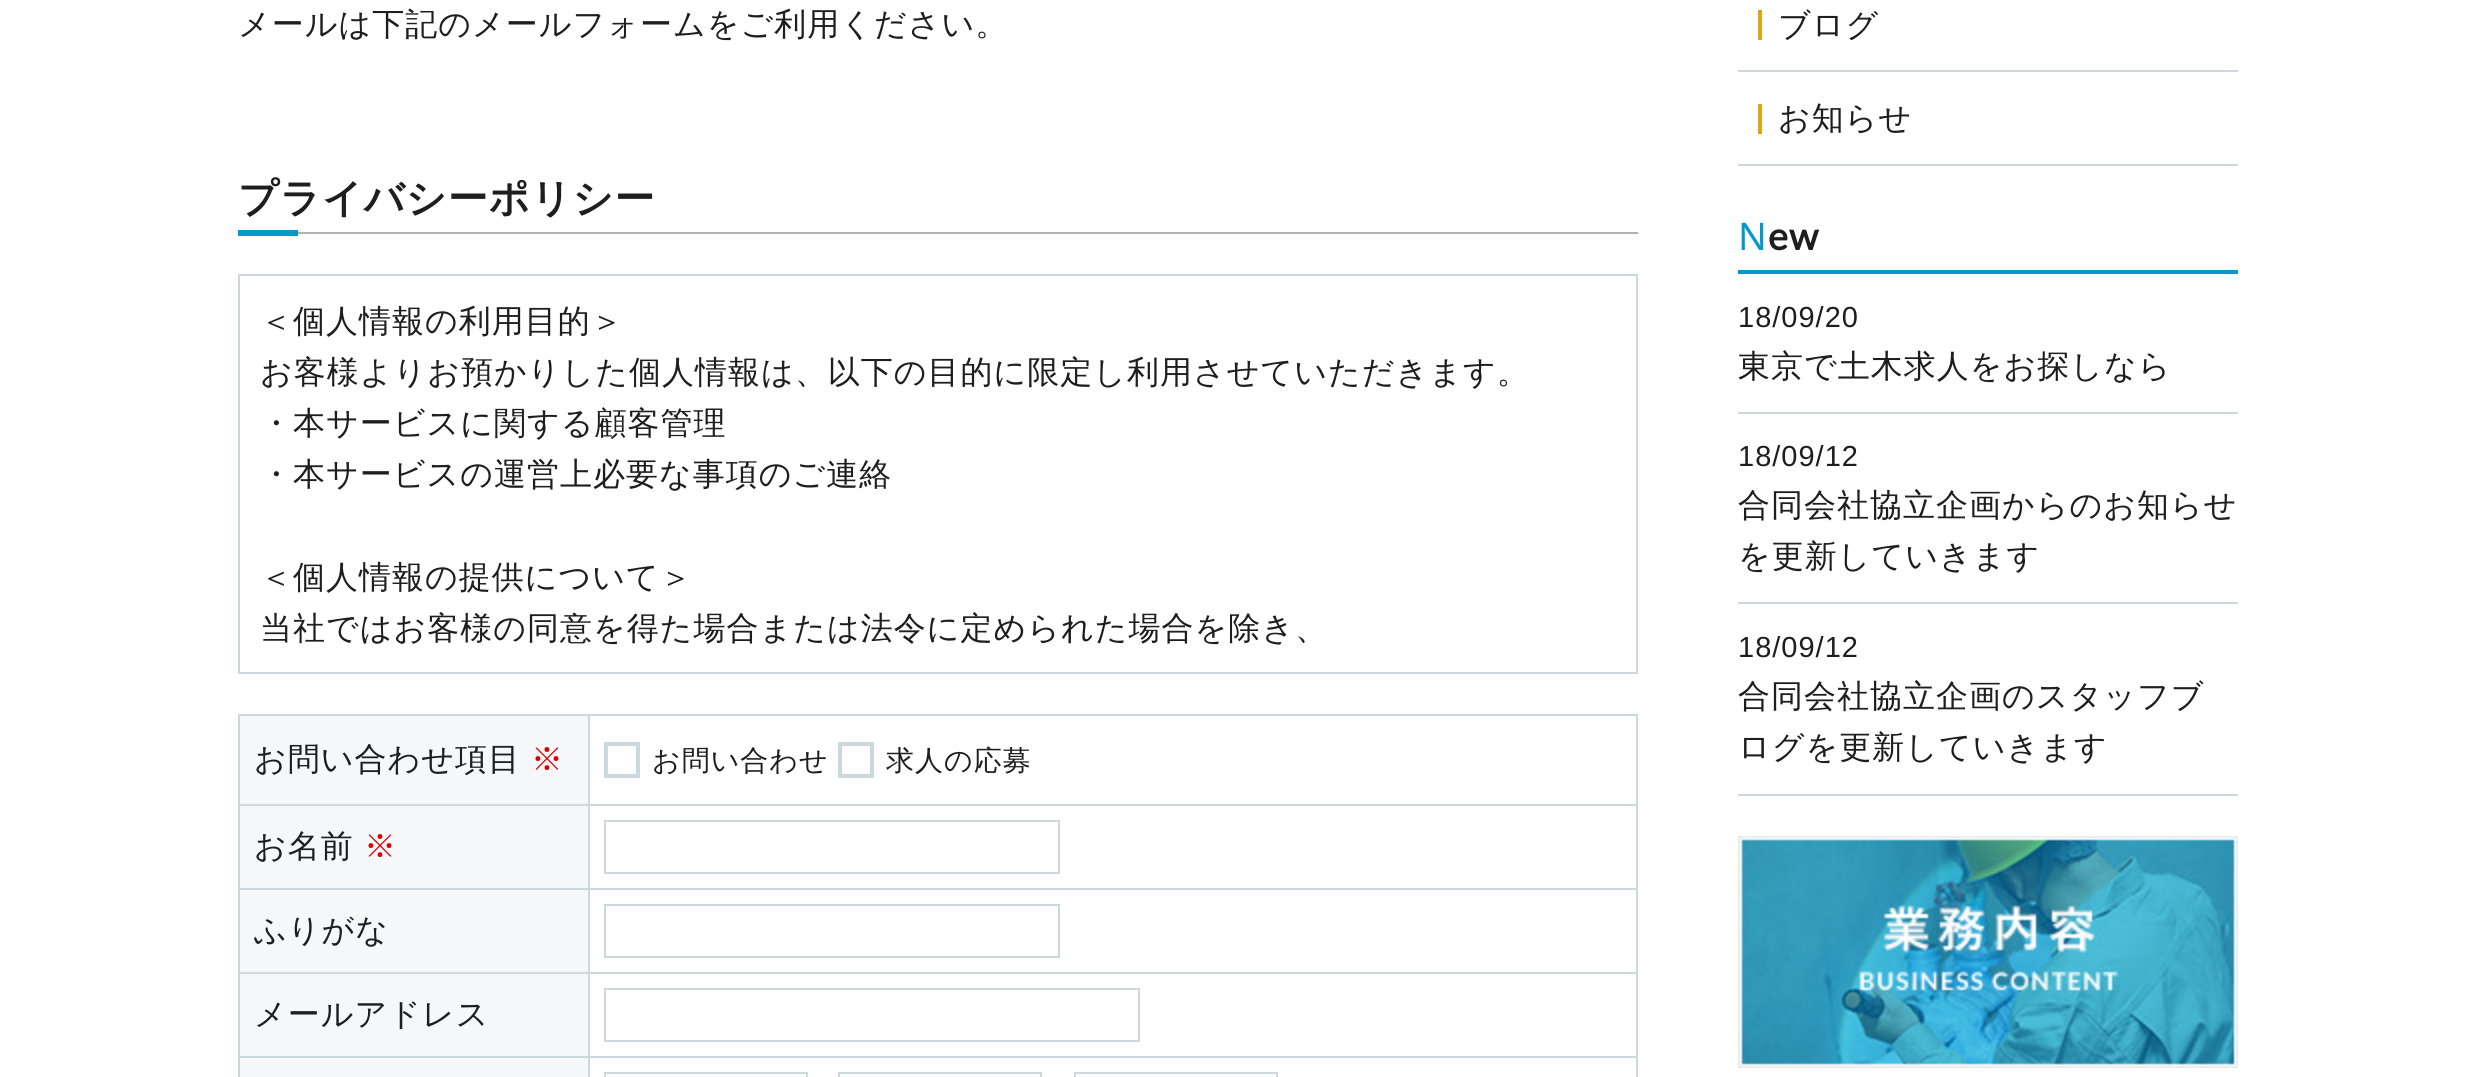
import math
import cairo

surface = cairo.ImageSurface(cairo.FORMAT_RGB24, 2476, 1077)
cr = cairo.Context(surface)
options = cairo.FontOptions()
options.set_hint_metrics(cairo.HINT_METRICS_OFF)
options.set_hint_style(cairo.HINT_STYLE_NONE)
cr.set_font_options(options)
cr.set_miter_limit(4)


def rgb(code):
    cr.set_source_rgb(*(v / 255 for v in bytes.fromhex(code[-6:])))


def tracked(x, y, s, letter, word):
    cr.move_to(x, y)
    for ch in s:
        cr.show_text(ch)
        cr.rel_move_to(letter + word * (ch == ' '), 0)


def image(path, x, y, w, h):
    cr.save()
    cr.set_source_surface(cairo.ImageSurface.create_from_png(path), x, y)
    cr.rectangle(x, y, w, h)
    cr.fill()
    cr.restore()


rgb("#ffffff")
cr.paint()
rgb("#b2b2b2")
cr.rectangle(298, 232, 1340, 2)
cr.fill()
rgb("#0499cc")
cr.rectangle(238, 230, 60, 6)
cr.fill()
cr.rectangle(239, 275, 1398, 398)
rgb("#cbd8dc")
cr.stroke()
for x, y, w, h, color in [
    (240, 716, 348, 88, "#f5f7f9"),
    (588, 714, 1050, 2, "#cbd8dc"),
    (588, 804, 1050, 2, "#cbd8dc"),
    (588, 888, 1050, 2, "#cbd8dc"),
    (588, 972, 1050, 2, "#cbd8dc"),
    (588, 1056, 1050, 2, "#cbd8dc"),
    (588, 1056, 2, 21, "#cbd8dc"),
    (238, 1056, 352, 2, "#cbd8dc"),
    (588, 972, 2, 86, "#cbd8dc"),
    (238, 972, 352, 2, "#cbd8dc"),
    (588, 888, 2, 86, "#cbd8dc"),
    (238, 888, 352, 2, "#cbd8dc"),
    (588, 804, 2, 86, "#cbd8dc"),
    (238, 804, 352, 2, "#cbd8dc"),
    (588, 714, 2, 92, "#cbd8dc"),
    (238, 714, 352, 2, "#cbd8dc"),
    (238, 1056, 2, 21, "#cbd8dc"),
    (238, 972, 2, 86, "#cbd8dc"),
    (238, 888, 2, 86, "#cbd8dc"),
    (238, 804, 2, 86, "#cbd8dc"),
    (238, 714, 2, 92, "#cbd8dc"),
    (1636, 1056, 2, 21, "#cbd8dc"),
    (1636, 972, 2, 86, "#cbd8dc"),
    (1636, 888, 2, 86, "#cbd8dc"),
    (1636, 804, 2, 86, "#cbd8dc"),
    (1636, 714, 2, 92, "#cbd8dc"),
]:
    rgb(color)
    cr.rectangle(x, y, w, h)
    cr.fill()
cr.rectangle(606, 744, 32, 32)
cr.set_line_width(4)
cr.stroke()
cr.rectangle(840, 744, 32, 32)
cr.stroke()
rgb("#f5f7f9")
cr.rectangle(240, 806, 348, 82)
cr.fill()
cr.rectangle(605, 821, 454, 52)
rgb("#cbd8dc")
cr.set_line_width(2)
cr.stroke()
rgb("#f5f7f9")
cr.rectangle(240, 890, 348, 82)
cr.fill()
cr.rectangle(605, 905, 454, 52)
rgb("#cbd8dc")
cr.stroke()
rgb("#f5f7f9")
cr.rectangle(240, 974, 348, 82)
cr.fill()
cr.rectangle(605, 989, 534, 52)
rgb("#cbd8dc")
cr.stroke()
rgb("#f5f7f9")
cr.rectangle(240, 1058, 348, 19)
cr.fill()
cr.rectangle(605, 1073, 202, 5)
rgb("#cbd8dc")
cr.stroke()
cr.rectangle(839, 1073, 202, 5)
cr.stroke()
cr.rectangle(1075, 1073, 202, 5)
cr.stroke()
for x, y, w, h, color in [
    (1738, 70, 500, 2, "#cbd8dc"),
    (1758, 10, 4, 30, "#e4a41a"),
    (1738, 164, 500, 2, "#cbd8dc"),
    (1758, 104, 4, 30, "#e4a41a"),
    (1738, 270, 500, 4, "#0499cc"),
    (1738, 412, 500, 2, "#cbd8dc"),
    (1738, 602, 500, 2, "#cbd8dc"),
    (1738, 794, 500, 2, "#cbd8dc"),
]:
    rgb(color)
    cr.rectangle(x, y, w, h)
    cr.fill()
image("img/1.png", 1738, 835, 500, 233)
cr.select_font_face("WenQuanYi Zen Hei Medium")
cr.set_font_size(32)
rgb("#1e1e1e")
tracked(238, 35, "メールは下記のメールフォームをご利用ください。", 1, 0)
cr.select_font_face("WenQuanYi Zen Hei", cairo.FONT_SLANT_NORMAL, cairo.FONT_WEIGHT_BOLD)
cr.set_font_size(40)
tracked(238, 212, "プライバシーポリシー", 1, 0)
cr.select_font_face("WenQuanYi Zen Hei Medium")
cr.set_font_size(32)
for x, y, s in [
    (260, 332, "＜個人情報の利用目的＞"),
    (260, 383, "お客様よりお預かりした個人情報は、以下の目的に限定し利用させていただきます。"),
    (260, 434, "・本サービスに関する顧客管理"),
    (260, 485, "・本サービスの運営上必要な事項のご連絡"),
    (260, 588, "＜個人情報の提供について＞"),
    (260, 639, "当社ではお客様の同意を得た場合または法令に定められた場合を除き、"),
    (254, 770, "お問い合わせ項目"),
]:
    tracked(x, y, s, 1, 0)
rgb("#dd0000")
tracked(531, 770, "※", 1, 0)
cr.set_font_size(28)
rgb("#1e1e1e")
tracked(652, 770, "お問い合わせ", 1, 0)
tracked(886, 770, "求人の応募", 1, 0)
cr.set_font_size(32)
tracked(254, 857, "お名前", 1, 0)
rgb("#dd0000")
tracked(364, 857, "※", 1, 0)
rgb("#1e1e1e")
for x, y, s in [
    (254, 941, "ふりがな"),
    (254, 1025, "メールアドレス"),
    (1778, 36, "ブログ"),
    (1778, 129, "お知らせ"),
]:
    tracked(x, y, s, 1, 0)
cr.select_font_face("Noto Sans")
cr.set_font_size(38)
rgb("#0499cc")
tracked(1738, 250, "N", 1, 0)
cr.select_font_face("Lato", cairo.FONT_SLANT_NORMAL, cairo.FONT_WEIGHT_BOLD)
rgb("#1e1e1e")
tracked(1768, 250, "ew", 1, 0)
cr.select_font_face("Liberation Sans")
cr.set_font_size(29)
tracked(1738, 327, "18/09/20", 1, 0)
cr.select_font_face("WenQuanYi Zen Hei Medium")
cr.set_font_size(32)
tracked(1738, 377, "東京で土木求人をお探しなら", 1, 0)
cr.select_font_face("Liberation Sans")
cr.set_font_size(29)
tracked(1738, 466, "18/09/12", 1, 0)
cr.select_font_face("WenQuanYi Zen Hei Medium")
cr.set_font_size(32)
tracked(1738, 516, "合同会社協立企画からのお知らせ", 1, 0)
tracked(1738, 567, "を更新していきます", 1, 0)
cr.select_font_face("Liberation Sans")
cr.set_font_size(29)
tracked(1738, 657, "18/09/12", 1, 0)
cr.select_font_face("WenQuanYi Zen Hei Medium")
cr.set_font_size(32)
tracked(1738, 707, "合同会社協立企画のスタッフブ", 1, 0)
tracked(1738, 758, "ログを更新していきます", 1, 0)
surface.write_to_png("page.png")
